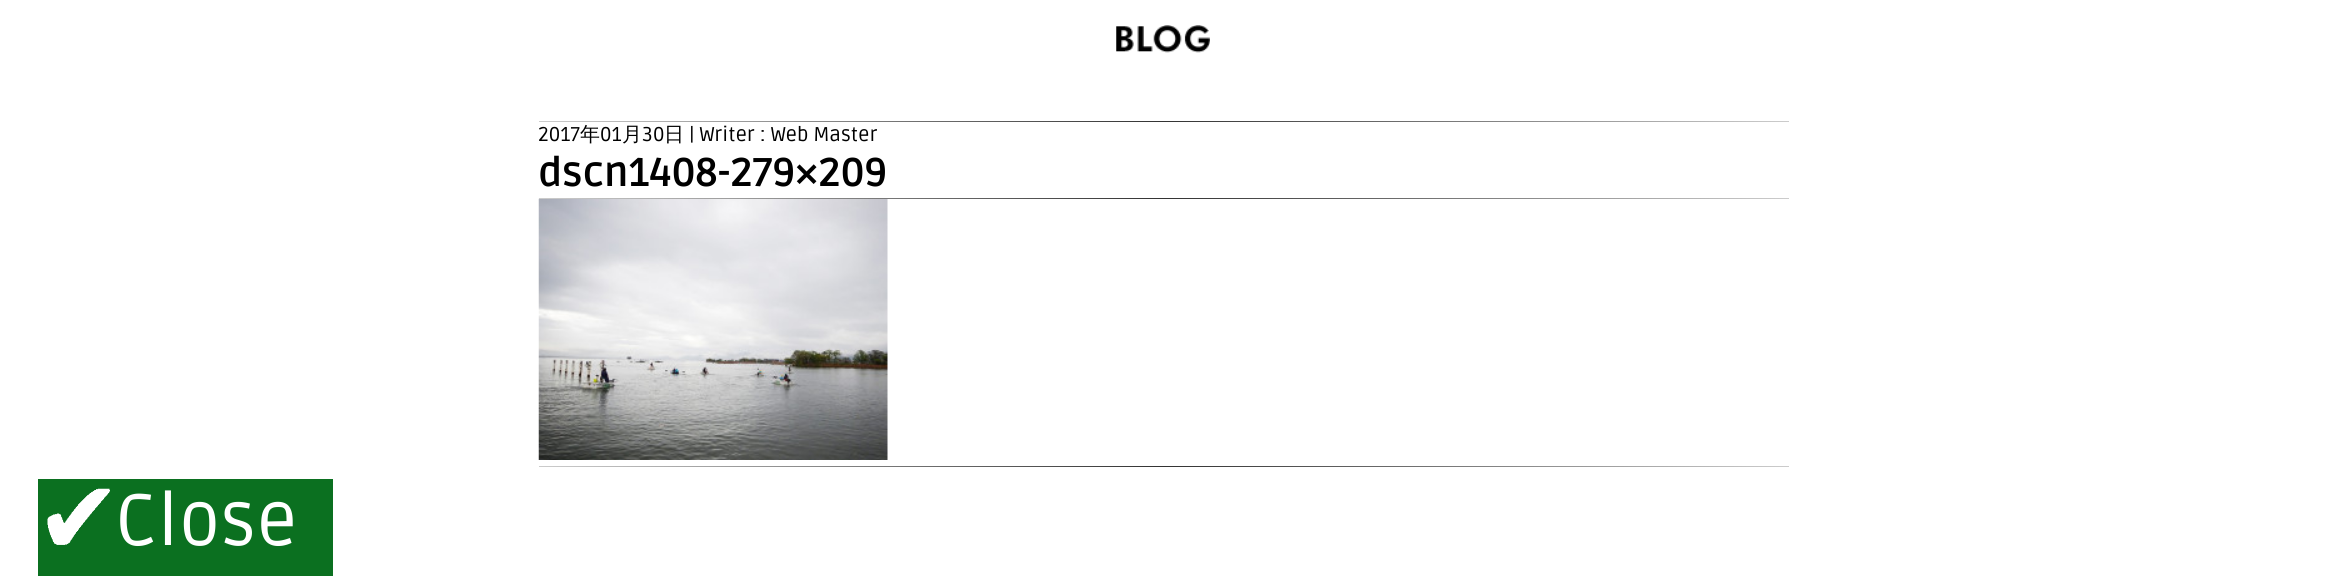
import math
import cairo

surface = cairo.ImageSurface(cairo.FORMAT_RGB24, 2326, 588)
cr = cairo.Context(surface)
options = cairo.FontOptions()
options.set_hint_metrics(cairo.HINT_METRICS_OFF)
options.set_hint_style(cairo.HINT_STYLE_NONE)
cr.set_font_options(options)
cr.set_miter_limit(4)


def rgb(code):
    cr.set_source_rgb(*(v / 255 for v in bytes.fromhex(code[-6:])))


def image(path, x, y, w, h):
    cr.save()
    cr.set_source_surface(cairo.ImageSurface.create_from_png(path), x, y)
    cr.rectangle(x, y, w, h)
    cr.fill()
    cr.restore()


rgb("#ffffff")
cr.paint()
image("img/1.png", 1116, 25, 94, 28)
gradient = cairo.LinearGradient(539, 122, 1789, 122)
gradient.add_color_stop_rgba(0, 0.8, 0.8, 0.8, 1)
gradient.add_color_stop_rgba(0.5, 0.2, 0.2, 0.2, 1)
gradient.add_color_stop_rgba(1, 0.8, 0.8, 0.8, 1)
cr.set_source(gradient)
cr.rectangle(539, 121, 1250, 1)
cr.fill()
image("img/2.png", 538, 198, 350, 262)
gradient = cairo.LinearGradient(539, 198, 1789, 198)
gradient.add_color_stop_rgba(0, 0.8, 0.8, 0.8, 1)
gradient.add_color_stop_rgba(0.5, 0.2, 0.2, 0.2, 1)
gradient.add_color_stop_rgba(1, 0.8, 0.8, 0.8, 1)
cr.set_source(gradient)
cr.rectangle(539, 198, 1250, 1)
cr.fill()
gradient = cairo.LinearGradient(539, 467, 1789, 467)
gradient.add_color_stop_rgba(0, 0.8, 0.8, 0.8, 1)
gradient.add_color_stop_rgba(0.5, 0.2, 0.2, 0.2, 1)
gradient.add_color_stop_rgba(1, 0.8, 0.8, 0.8, 1)
cr.set_source(gradient)
cr.rectangle(539, 466, 1250, 1)
cr.fill()
rgb("#0b7020")
cr.rectangle(38, 479, 295, 97)
cr.fill()
image("img/3.png", 47, 488, 63, 57)
cr.select_font_face("Ruda")
cr.set_font_size(20)
rgb("#000000")
cr.move_to(538, 141)
cr.show_text("2017")
cr.select_font_face("WenQuanYi Zen Hei Medium")
cr.move_to(580, 141)
cr.show_text("年")
cr.select_font_face("Ruda")
cr.move_to(600, 141)
cr.show_text("01")
cr.select_font_face("WenQuanYi Zen Hei Medium")
cr.move_to(622, 141)
cr.show_text("月")
cr.select_font_face("Ruda")
cr.move_to(642, 141)
cr.show_text("30")
cr.select_font_face("WenQuanYi Zen Hei Medium")
cr.move_to(664, 141)
cr.show_text("日")
cr.select_font_face("Ruda")
cr.move_to(689, 141)
cr.show_text("| Writer : Web Master")
cr.select_font_face("Ruda", cairo.FONT_SLANT_NORMAL, cairo.FONT_WEIGHT_BOLD)
cr.set_font_size(40)
cr.move_to(538, 186)
cr.show_text("dscn1408-279×209")
cr.select_font_face("Ruda")
cr.set_font_size(72.5)
rgb("#ffffff")
cr.move_to(115, 545)
cr.show_text("Close")
surface.write_to_png("page.png")
